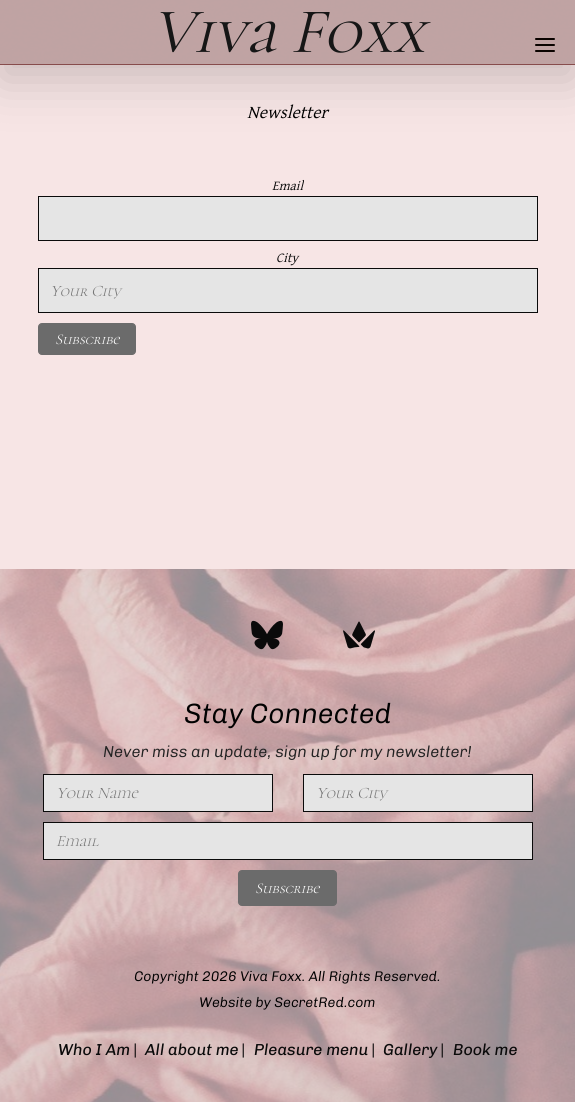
import math
import cairo

surface = cairo.ImageSurface(cairo.FORMAT_RGB24, 575, 1102)
cr = cairo.Context(surface)
options = cairo.FontOptions()
options.set_hint_metrics(cairo.HINT_METRICS_OFF)
options.set_hint_style(cairo.HINT_STYLE_NONE)
cr.set_font_options(options)
cr.set_miter_limit(4)


def rgb(code):
    cr.set_source_rgb(*(v / 255 for v in bytes.fromhex(code[-6:])))


def rrect(x, y, w, h, r):
    cr.new_sub_path()
    for i, (u, v) in enumerate([(x + w - r, y + h - r), (x + r, y + h - r), (x + r, y + r), (x + w - r, y + r)]):
        cr.arc(u, v, r, i * math.pi / 2, (i + 1) * math.pi / 2)
    cr.close_path()


def soft_shadow(x, y, w, h, r, blur, alpha):
    cr.push_group_with_content(cairo.CONTENT_ALPHA)
    cr.set_operator(cairo.OPERATOR_SOURCE)
    for i in range(15, -16, -2):
        e = blur * i / 6
        if min(w, h) + 2 * e > 0:
            cr.set_source_rgba(0, 0, 0, alpha * math.erfc((i - 1) / 8.5) / 2)
            rrect(x - e, y - e, w + 2 * e, h + 2 * e, max(0, min(r + e + blur * .6, min(w, h) / 2 + e)))
            cr.fill()
    cr.mask(cr.pop_group())


def image(path, x, y, w, h):
    cr.save()
    cr.set_source_surface(cairo.ImageSurface.create_from_png(path), x, y)
    cr.rectangle(x, y, w, h)
    cr.fill()
    cr.restore()


rgb("#ffffff")
cr.paint()
rgb("#f7e5e5")
cr.rectangle(0, 64, 575, 505)
cr.fill()
rgb("#000000")
soft_shadow(0, 16, 575, 64, 0, 24, 0.18)
image("img/1.png", 0, 0, 575, 64)
rgb("#0a0300")
rrect(535, 38, 20, 2, 1)
cr.fill()
rrect(535, 44, 20, 2, 1)
cr.fill()
rrect(535, 50, 20, 2, 1)
cr.fill()
cr.set_source_rgba(0.518, 0.278, 0.278, 0.95)
cr.rectangle(0, 64, 575, 1)
cr.fill()
rgb("#e5e5e5")
cr.rectangle(38.5, 196.5, 499, 44)
cr.fill_preserve()
rgb("#0a0a0a")
cr.set_line_width(1)
cr.stroke()
rgb("#e5e5e5")
cr.rectangle(38.5, 268.5, 499, 44)
cr.fill_preserve()
rgb("#0a0a0a")
cr.stroke()
rgb("#6b6b6b")
rrect(38.5, 323.5, 97, 31, 3.5)
cr.fill_preserve()
cr.stroke()
image("img/4.png", 0, 569, 575, 533)
image("img/2.png", 251, 620, 32, 30)
image("img/3.png", 343, 621, 32, 28)
rgb("#e5e5e5")
cr.rectangle(43.5, 774.5, 229, 37)
cr.fill_preserve()
rgb("#0a0a0a")
cr.stroke()
rgb("#e5e5e5")
cr.rectangle(303.5, 774.5, 229, 37)
cr.fill_preserve()
rgb("#0a0a0a")
cr.stroke()
rgb("#e5e5e5")
cr.rectangle(43.5, 822.5, 489, 37)
cr.fill_preserve()
rgb("#0a0a0a")
cr.stroke()
rgb("#6b6b6b")
rrect(238.5, 870.5, 98, 35, 3.5)
cr.fill_preserve()
cr.stroke()
cr.select_font_face("Cormorant Unicase", cairo.FONT_SLANT_ITALIC)
cr.set_font_size(64)
rgb("#161616")
cr.move_to(151, 52)
cr.show_text("Viva Foxx")
cr.select_font_face("David Libre", cairo.FONT_SLANT_ITALIC)
cr.set_font_size(18)
rgb("#000000")
cr.move_to(247, 118)
cr.show_text("Newsletter")
cr.set_font_size(13.5)
rgb("#0a0a0a")
cr.move_to(272, 190)
cr.show_text("Email")
cr.move_to(276, 262)
cr.show_text("City")
cr.select_font_face("Cormorant Unicase Light", cairo.FONT_SLANT_ITALIC)
cr.set_font_size(16)
rgb("#757575")
cr.move_to(50, 296)
cr.show_text("Your City")
cr.set_font_size(15)
rgb("#ffffff")
cr.move_to(55, 344)
cr.show_text("Subscribe")
cr.select_font_face("Chivo Light", cairo.FONT_SLANT_ITALIC)
cr.set_font_size(28)
rgb("#000000")
cr.move_to(184, 723)
cr.show_text("Stay Connected")
cr.set_font_size(16)
rgb("#222222")
cr.move_to(103, 757)
cr.show_text("Never miss an update, sign up for my newsletter!")
cr.select_font_face("Cormorant Unicase Light", cairo.FONT_SLANT_ITALIC)
rgb("#757575")
for x, y, s in [
    (56, 798, "Your Name"),
    (316, 798, "Your City"),
    (56, 846, "Email"),
]:
    cr.move_to(x, y)
    cr.show_text(s)
cr.set_font_size(15)
rgb("#ffffff")
cr.move_to(255, 893)
cr.show_text("Subscribe")
cr.select_font_face("Chivo Light", cairo.FONT_SLANT_ITALIC)
cr.set_font_size(14)
rgb("#000000")
cr.move_to(134, 981)
cr.show_text("Copyright 2026 Viva Foxx. All Rights Reserved.")
cr.move_to(199, 1007)
cr.show_text("Website by SecretRed.com")
cr.select_font_face("Chivo", cairo.FONT_SLANT_ITALIC)
cr.set_font_size(16)
rgb("#0a0a0a")
cr.move_to(58, 1055)
cr.show_text("Who I Am")
cr.select_font_face("Carlito", cairo.FONT_SLANT_ITALIC)
rgb("#000000")
cr.move_to(132, 1055)
cr.show_text("|")
cr.select_font_face("Chivo", cairo.FONT_SLANT_ITALIC)
rgb("#0a0a0a")
cr.move_to(145, 1055)
cr.show_text("All about me")
cr.select_font_face("Carlito", cairo.FONT_SLANT_ITALIC)
rgb("#000000")
cr.move_to(240, 1055)
cr.show_text("|")
cr.select_font_face("Chivo", cairo.FONT_SLANT_ITALIC)
rgb("#0a0a0a")
cr.move_to(254, 1055)
cr.show_text("Pleasure menu")
cr.select_font_face("Carlito", cairo.FONT_SLANT_ITALIC)
rgb("#000000")
cr.move_to(370, 1055)
cr.show_text("|")
cr.select_font_face("Chivo", cairo.FONT_SLANT_ITALIC)
rgb("#0a0a0a")
cr.move_to(383, 1055)
cr.show_text("Gallery")
cr.select_font_face("Carlito", cairo.FONT_SLANT_ITALIC)
rgb("#000000")
cr.move_to(439, 1055)
cr.show_text("|")
cr.select_font_face("Chivo", cairo.FONT_SLANT_ITALIC)
rgb("#0a0a0a")
cr.move_to(453, 1055)
cr.show_text("Book me")
surface.write_to_png("page.png")
